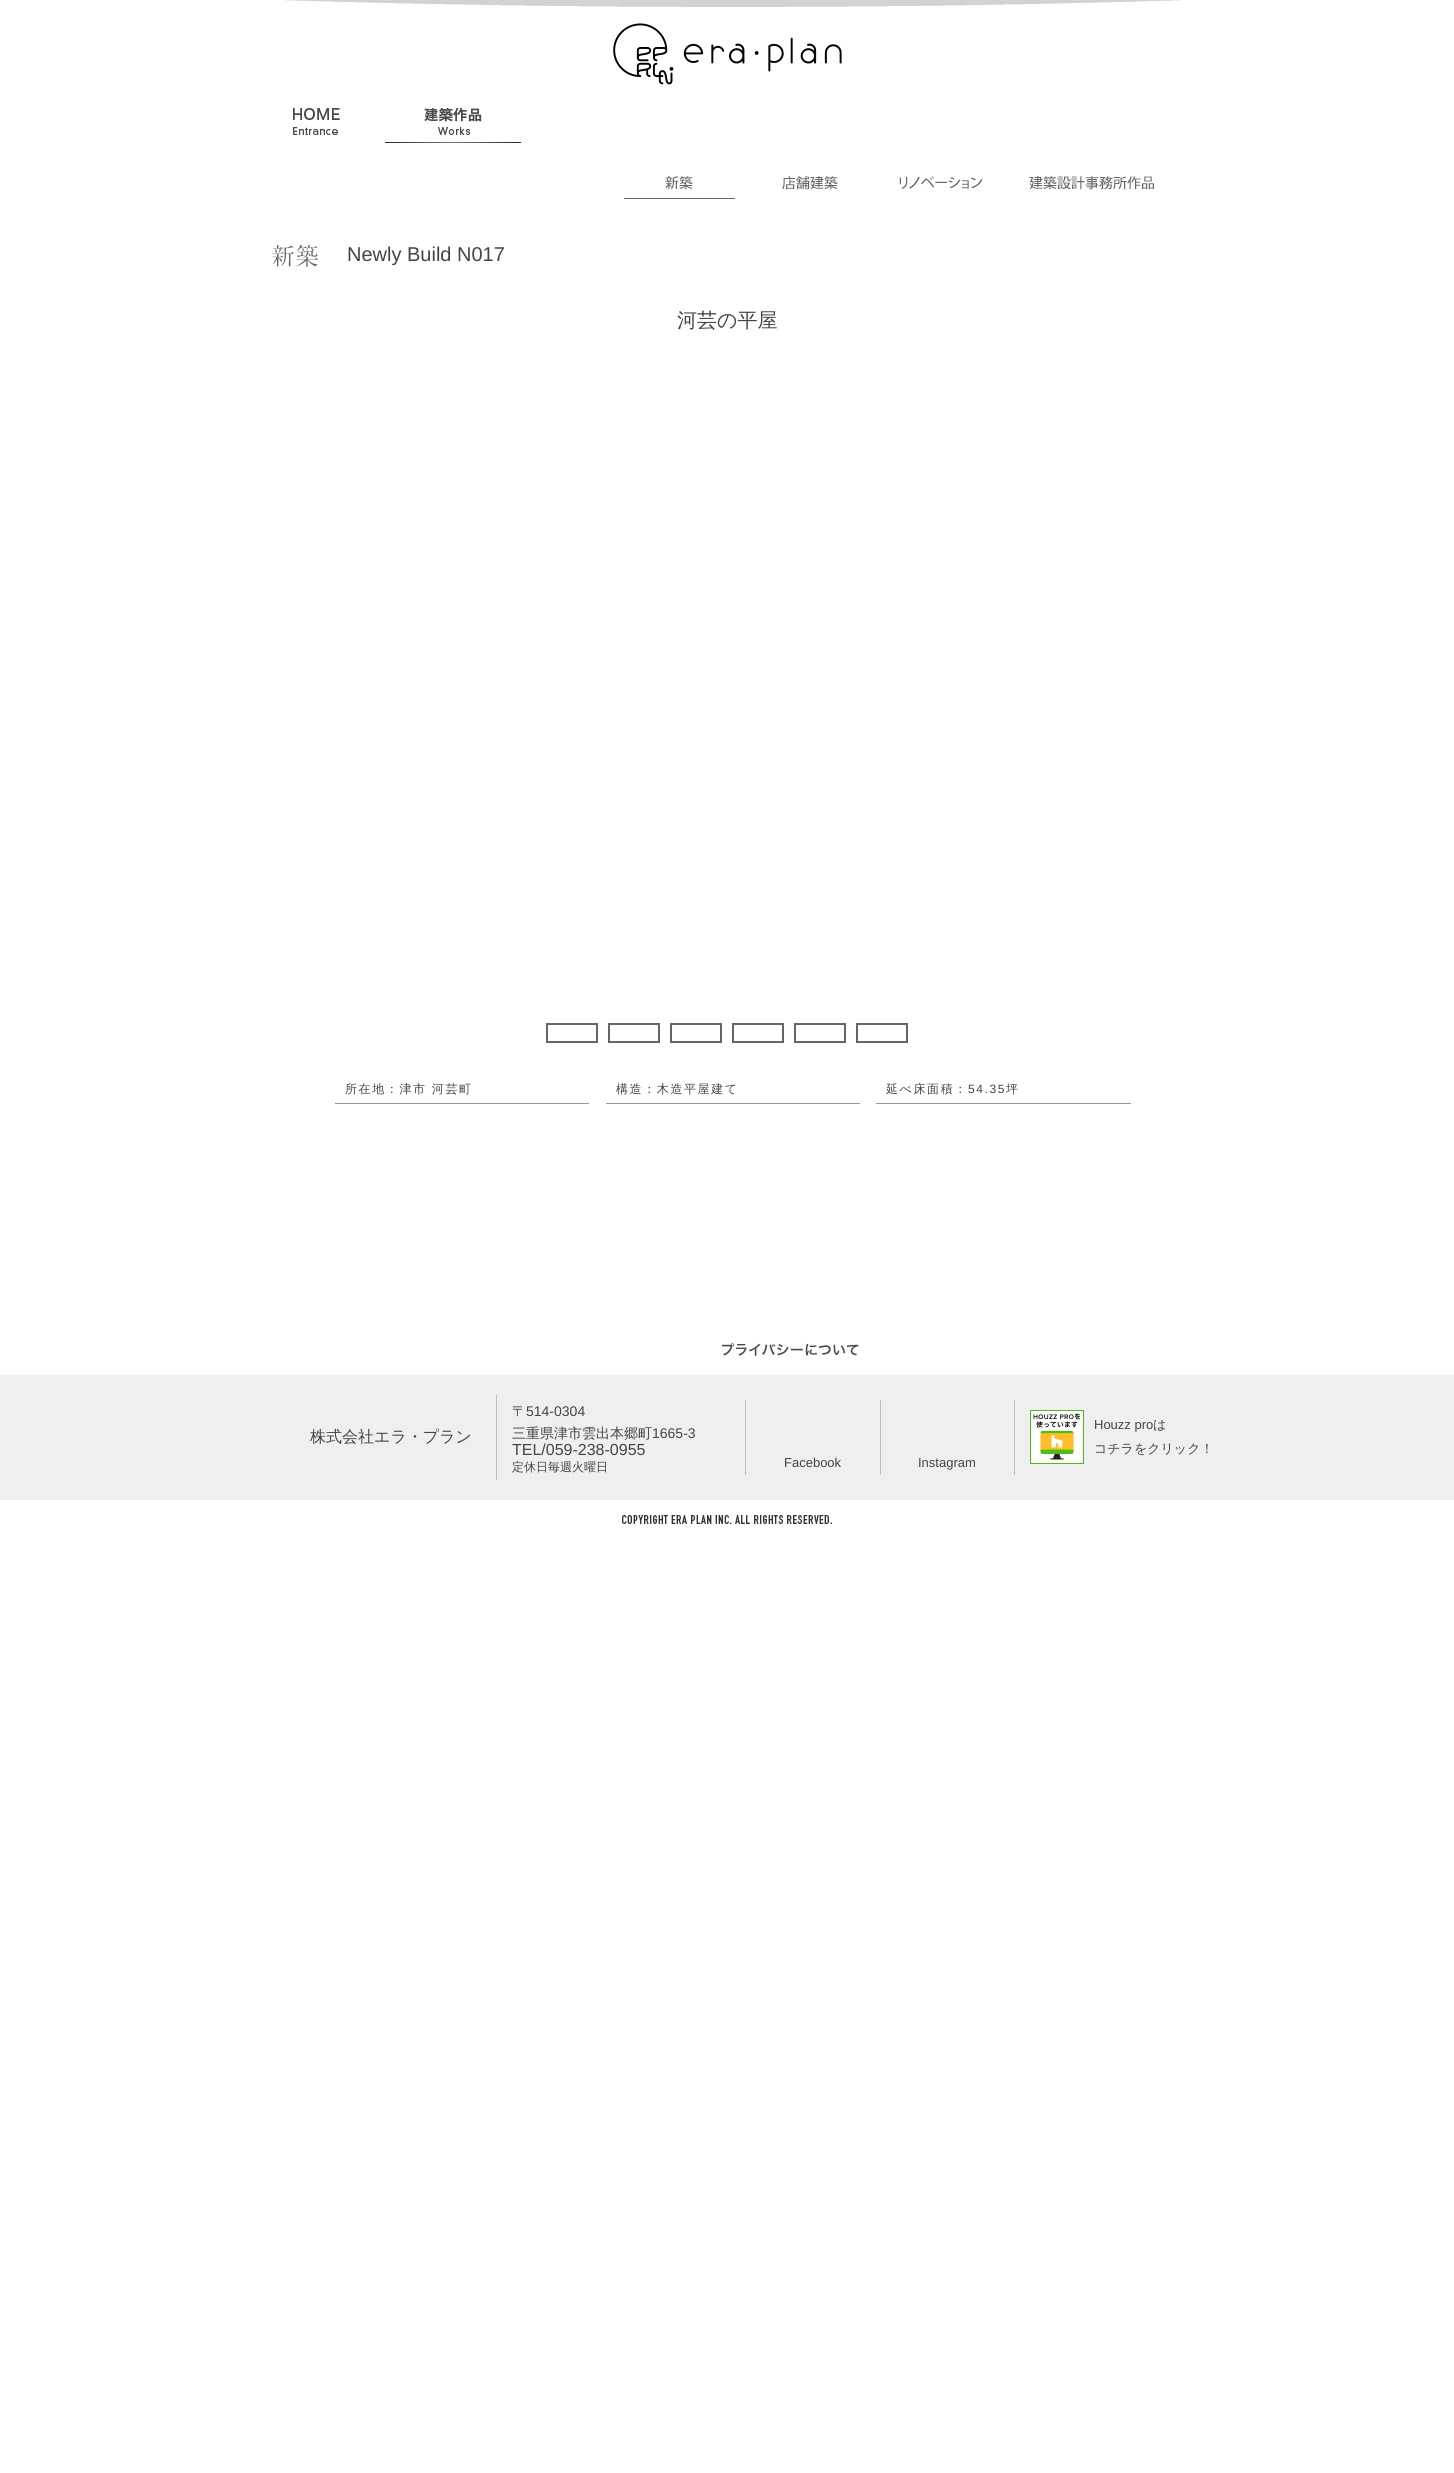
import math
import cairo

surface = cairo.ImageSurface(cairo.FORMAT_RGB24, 1454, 2473)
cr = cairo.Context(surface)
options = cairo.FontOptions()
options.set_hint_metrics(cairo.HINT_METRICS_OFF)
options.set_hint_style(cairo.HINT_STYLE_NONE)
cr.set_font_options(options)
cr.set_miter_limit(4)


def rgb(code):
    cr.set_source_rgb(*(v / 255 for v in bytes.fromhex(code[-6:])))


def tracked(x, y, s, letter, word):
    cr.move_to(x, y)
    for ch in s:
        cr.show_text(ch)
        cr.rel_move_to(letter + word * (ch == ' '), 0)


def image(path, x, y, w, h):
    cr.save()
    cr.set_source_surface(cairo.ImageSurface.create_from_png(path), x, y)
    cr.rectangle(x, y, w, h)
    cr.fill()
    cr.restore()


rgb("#ffffff")
cr.paint()
image("img/1.png", 286, 0, 895, 7)
image("img/2.png", 613, 23, 229, 62)
image("img/3.png", 293, 108, 47, 27)
image("img/4.png", 385, 107, 136, 36)
image("img/5.png", 624, 176, 111, 23)
image("img/6.png", 782, 176, 56, 14)
image("img/7.png", 899, 176, 84, 13)
image("img/8.png", 1029, 176, 125, 14)
image("img/9.png", 272, 245, 46, 22)
cr.rectangle(547, 1024, 50, 18)
rgb("#666666")
cr.stroke()
cr.rectangle(609, 1024, 50, 18)
cr.stroke()
cr.rectangle(671, 1024, 50, 18)
cr.stroke()
cr.rectangle(733, 1024, 50, 18)
cr.stroke()
cr.rectangle(795, 1024, 50, 18)
cr.stroke()
cr.rectangle(857, 1024, 50, 18)
cr.stroke()
for x, y, w, h, color in [
    (335, 1103, 254, 1, "#999999"),
    (606, 1103, 254, 1, "#999999"),
    (876, 1103, 255, 1, "#999999"),
]:
    rgb(color)
    cr.rectangle(x, y, w, h)
    cr.fill()
image("img/10.png", 722, 1343, 137, 13)
for x, y, w, h, color in [
    (0, 1375, 1454, 125, "#efefef"),
    (496, 1395, 1, 85, "#bebebe"),
    (745, 1400, 1, 75, "#bebebe"),
]:
    rgb(color)
    cr.rectangle(x, y, w, h)
    cr.fill()
image("img/11.png", 1030, 1410, 54, 54)
cr.rectangle(880, 1400, 1, 75)
cr.fill()
cr.rectangle(1014, 1400, 1, 75)
cr.fill()
image("img/12.png", 622, 1515, 210, 9)
cr.select_font_face("Liberation Sans")
cr.set_font_size(20)
rgb("#444444")
cr.move_to(347, 261)
cr.show_text("Newly Build N017")
cr.select_font_face("WenQuanYi Zen Hei Medium")
cr.move_to(677, 327)
cr.show_text("河芸の平屋")
cr.set_font_size(12)
for x, y, s in [
    (345, 1093, "所在地：津市 河芸町"),
    (616, 1093, "構造：木造平屋建て"),
    (886, 1093, "延べ床面積："),
]:
    tracked(x, y, s, 1.6, 0)
cr.select_font_face("Liberation Sans")
tracked(968, 1093, "54.35", 1.6, 0)
cr.select_font_face("WenQuanYi Zen Hei Medium")
tracked(1006, 1093, "坪", 1.6, 0)
cr.set_font_size(16)
cr.move_to(310, 1442)
cr.show_text("株式会社エラ・プラン")
cr.set_font_size(14)
cr.move_to(512, 1416)
cr.show_text("〒")
cr.select_font_face("Liberation Sans")
cr.move_to(526, 1416)
cr.show_text("514-0304")
cr.select_font_face("WenQuanYi Zen Hei Medium")
cr.move_to(512, 1438)
cr.show_text("三重県津市雲出本郷町")
cr.select_font_face("Liberation Sans")
cr.move_to(652, 1438)
cr.show_text("1665-3")
cr.set_font_size(16)
cr.move_to(512, 1455)
cr.show_text("TEL/059-238-0955")
cr.select_font_face("WenQuanYi Zen Hei Medium")
cr.set_font_size(12)
cr.move_to(512, 1471)
cr.show_text("定休日毎週火曜日")
cr.select_font_face("Liberation Sans")
cr.set_font_size(13)
cr.move_to(1094, 1429)
cr.show_text("Houzz pro")
cr.select_font_face("WenQuanYi Zen Hei Medium")
cr.move_to(1153, 1429)
cr.show_text("は")
cr.move_to(1094, 1453)
cr.show_text("コチラをクリック！")
cr.select_font_face("Liberation Sans")
cr.move_to(784, 1467)
cr.show_text("Facebook")
cr.move_to(918, 1467)
cr.show_text("Instagram")
surface.write_to_png("page.png")
